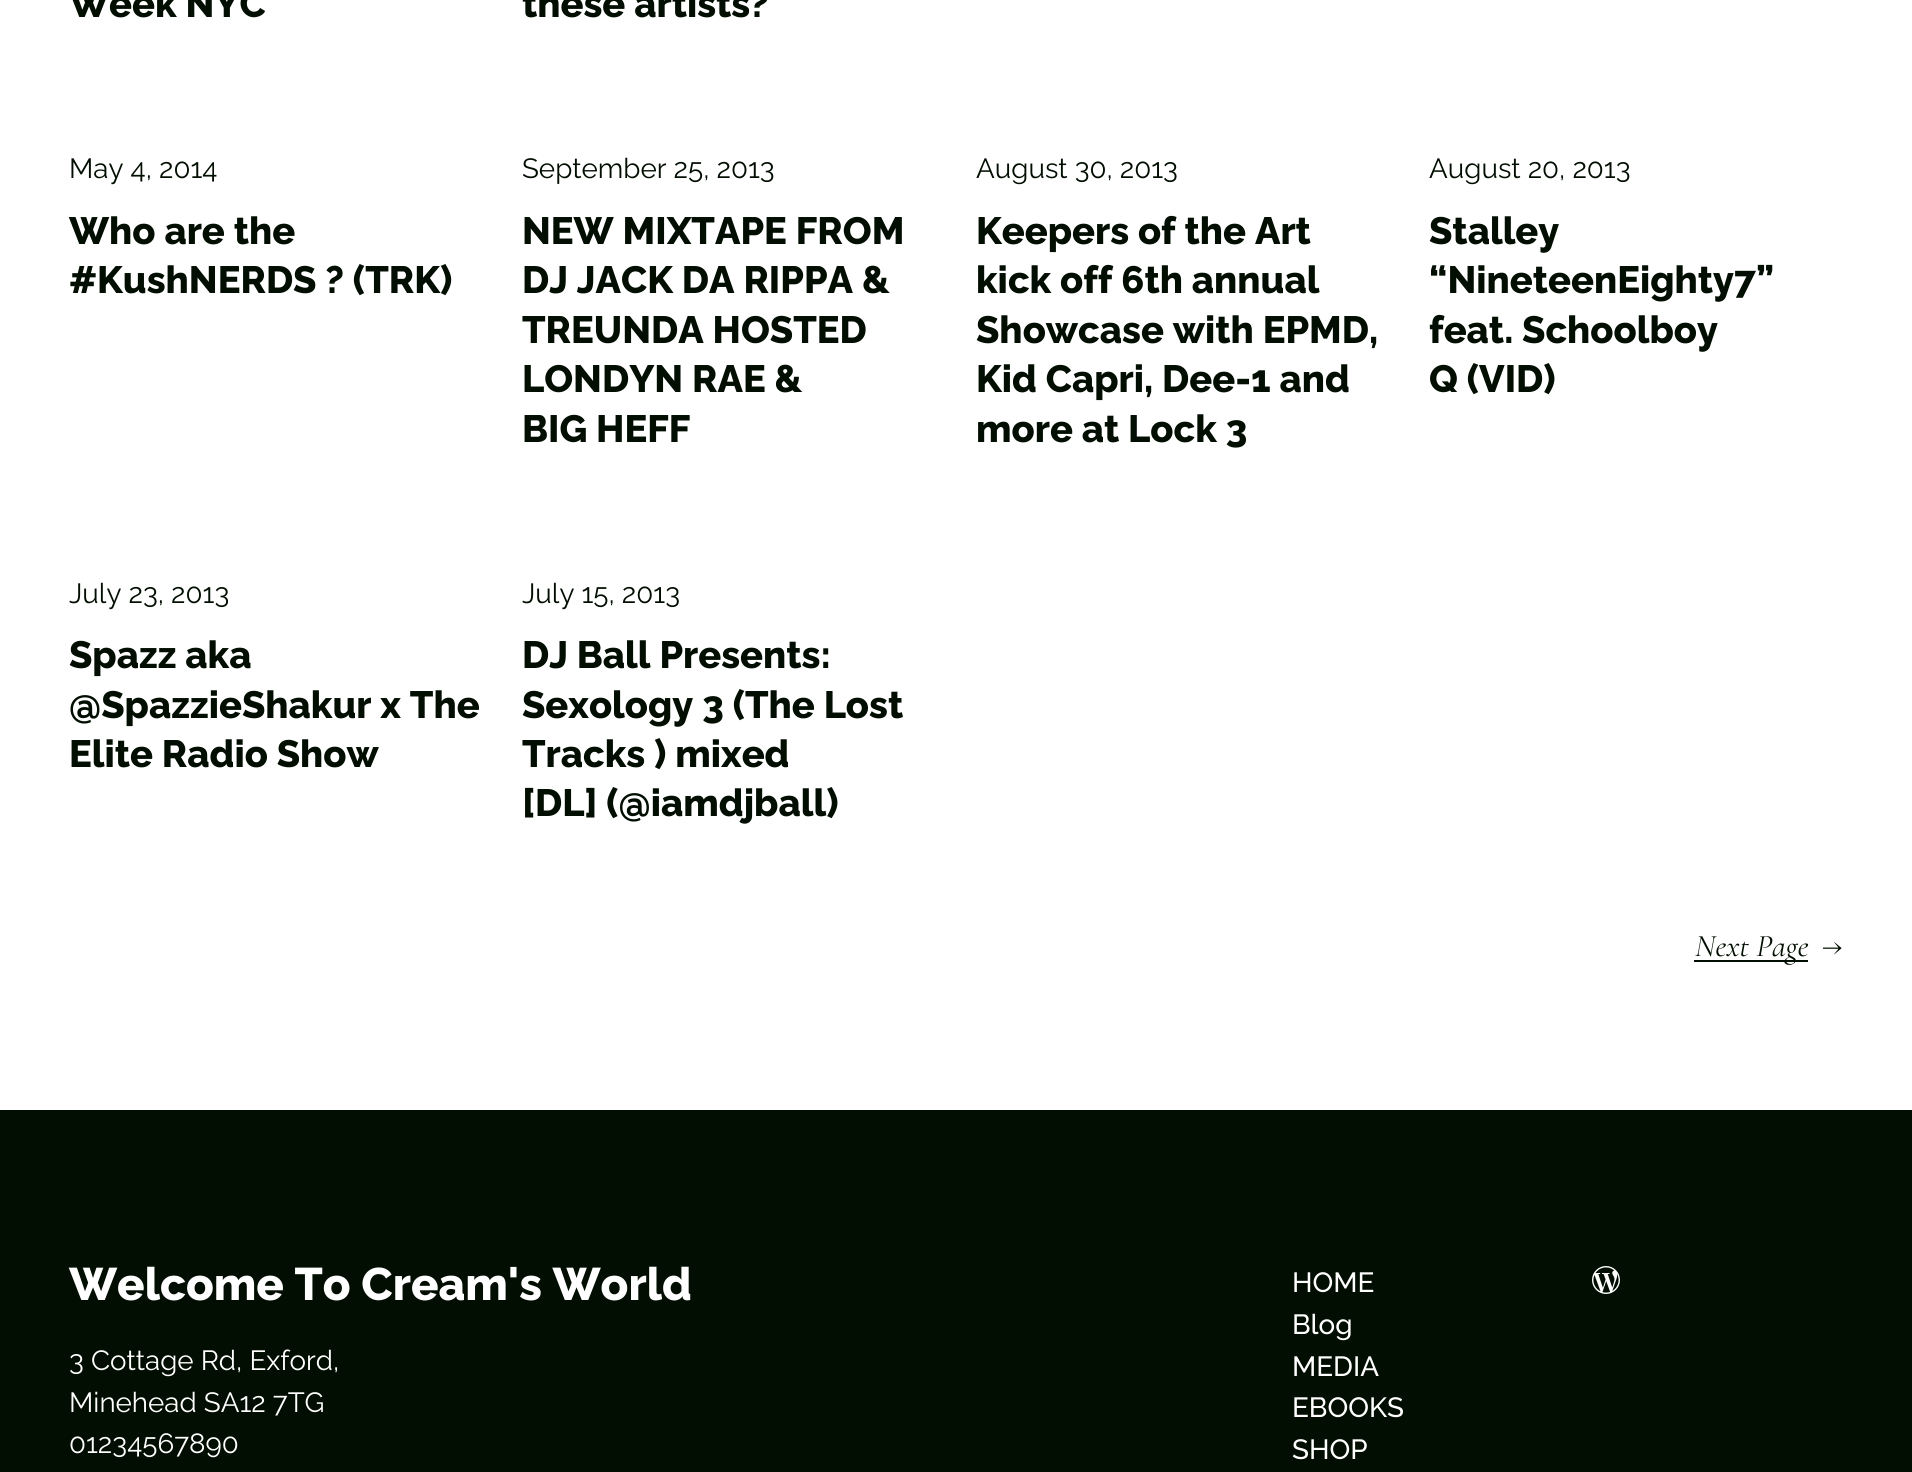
import math
import cairo

surface = cairo.ImageSurface(cairo.FORMAT_RGB24, 1912, 1472)
cr = cairo.Context(surface)
options = cairo.FontOptions()
options.set_hint_metrics(cairo.HINT_METRICS_OFF)
options.set_hint_style(cairo.HINT_STYLE_NONE)
cr.set_font_options(options)
cr.set_miter_limit(4)


def rgb(code):
    cr.set_source_rgb(*(v / 255 for v in bytes.fromhex(code[-6:])))


def image(path, x, y, w, h):
    cr.save()
    cr.set_source_surface(cairo.ImageSurface.create_from_png(path), x, y)
    cr.rectangle(x, y, w, h)
    cr.fill()
    cr.restore()


rgb("#ffffff")
cr.paint()
rgb("#020e01")
cr.rectangle(1694, 960, 114, 2)
cr.fill()
cr.rectangle(0, 1110, 1912, 362)
cr.fill()
image("img/1.png", 1592, 1266, 28, 28)
cr.select_font_face("Raleway ExtraBold")
cr.set_font_size(38)
cr.move_to(69, 17)
cr.show_text("Week NYC")
cr.move_to(522, 17)
cr.show_text("these artists?")
cr.select_font_face("Raleway")
cr.set_font_size(27.75)
cr.move_to(69, 178)
cr.show_text("May 4, 2014")
cr.select_font_face("Raleway ExtraBold")
cr.set_font_size(38)
cr.move_to(69, 244)
cr.show_text("Who are the")
cr.move_to(69, 293)
cr.show_text("#KushNERDS ? (TRK)")
cr.select_font_face("Raleway")
cr.set_font_size(27.75)
cr.move_to(522, 178)
cr.show_text("September 25, 2013")
cr.select_font_face("Raleway ExtraBold")
cr.set_font_size(38)
for x, y, s in [
    (522, 244, "NEW MIXTAPE FROM"),
    (522, 293, "DJ JACK DA RIPPA &"),
    (522, 343, "TREUNDA HOSTED"),
    (522, 392, "LONDYN RAE &"),
    (522, 442, "BIG HEFF"),
]:
    cr.move_to(x, y)
    cr.show_text(s)
cr.select_font_face("Raleway")
cr.set_font_size(27.75)
cr.move_to(976, 178)
cr.show_text("August 30, 2013")
cr.select_font_face("Raleway ExtraBold")
cr.set_font_size(38)
for x, y, s in [
    (976, 244, "Keepers of the Art"),
    (976, 293, "kick off 6th annual"),
    (976, 343, "Showcase with EPMD,"),
    (976, 392, "Kid Capri, Dee-1 and"),
    (976, 442, "more at Lock 3"),
]:
    cr.move_to(x, y)
    cr.show_text(s)
cr.select_font_face("Raleway")
cr.set_font_size(27.75)
cr.move_to(1429, 178)
cr.show_text("August 20, 2013")
cr.select_font_face("Raleway ExtraBold")
cr.set_font_size(38)
for x, y, s in [
    (1429, 244, "Stalley"),
    (1429, 293, "“NineteenEighty7”"),
    (1429, 343, "feat. Schoolboy"),
    (1429, 392, "Q (VID)"),
]:
    cr.move_to(x, y)
    cr.show_text(s)
cr.select_font_face("Raleway")
cr.set_font_size(27.75)
cr.move_to(69, 603)
cr.show_text("July 23, 2013")
cr.select_font_face("Raleway ExtraBold")
cr.set_font_size(38)
for x, y, s in [
    (69, 668, "Spazz aka"),
    (69, 718, "@SpazzieShakur x The"),
    (69, 767, "Elite Radio Show"),
]:
    cr.move_to(x, y)
    cr.show_text(s)
cr.select_font_face("Raleway")
cr.set_font_size(27.75)
cr.move_to(522, 603)
cr.show_text("July 15, 2013")
cr.select_font_face("Raleway ExtraBold")
cr.set_font_size(38)
for x, y, s in [
    (522, 668, "DJ Ball Presents:"),
    (522, 718, "Sexology 3 (The Lost"),
    (522, 767, "Tracks ) mixed"),
    (522, 816, "[DL] (@iamdjball)"),
]:
    cr.move_to(x, y)
    cr.show_text(s)
cr.select_font_face("Cormorant Garamond", cairo.FONT_SLANT_ITALIC)
cr.set_font_size(31.5)
cr.move_to(1695, 956)
cr.show_text("Next Page")
cr.move_to(1822, 956)
cr.show_text("→")
cr.select_font_face("Raleway ExtraBold")
cr.set_font_size(45.6)
rgb("#ffffff")
cr.move_to(69, 1300)
cr.show_text("Welcome To Cream's World")
cr.select_font_face("Raleway")
cr.set_font_size(27.75)
for x, y, s in [
    (69, 1370, "3 Cottage Rd, Exford,"),
    (69, 1412, "Minehead SA12 7TG"),
    (69, 1453, "01234567890"),
]:
    cr.move_to(x, y)
    cr.show_text(s)
cr.select_font_face("Raleway Medium")
for x, y, s in [
    (1292, 1292, "HOME"),
    (1292, 1334, "Blog"),
    (1292, 1376, "MEDIA"),
    (1292, 1417, "EBOOKS"),
    (1292, 1459, "SHOP"),
]:
    cr.move_to(x, y)
    cr.show_text(s)
surface.write_to_png("page.png")
